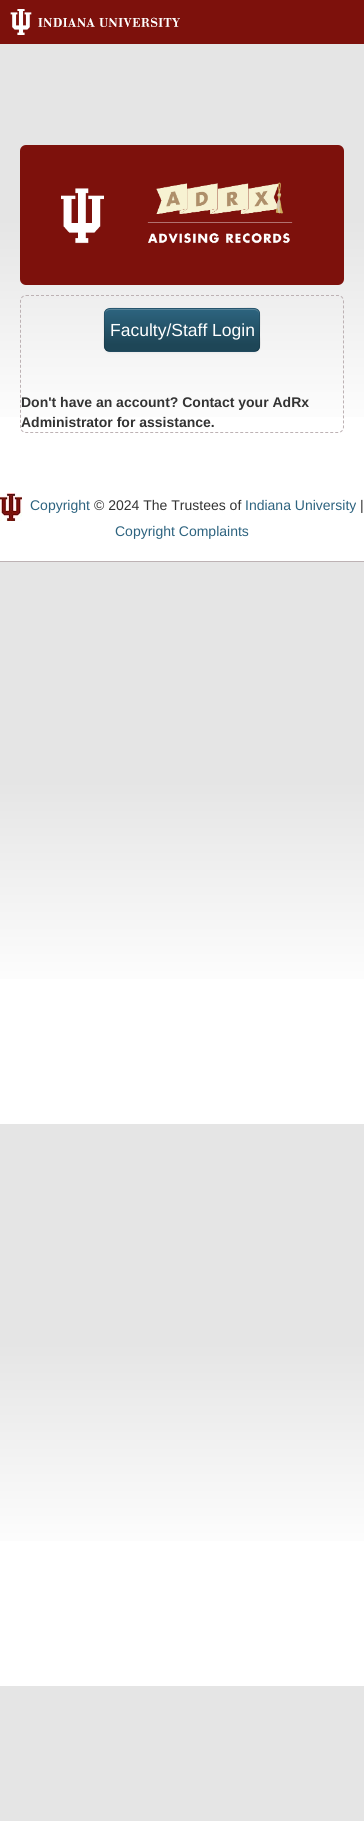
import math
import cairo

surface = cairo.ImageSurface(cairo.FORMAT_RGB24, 364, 1821)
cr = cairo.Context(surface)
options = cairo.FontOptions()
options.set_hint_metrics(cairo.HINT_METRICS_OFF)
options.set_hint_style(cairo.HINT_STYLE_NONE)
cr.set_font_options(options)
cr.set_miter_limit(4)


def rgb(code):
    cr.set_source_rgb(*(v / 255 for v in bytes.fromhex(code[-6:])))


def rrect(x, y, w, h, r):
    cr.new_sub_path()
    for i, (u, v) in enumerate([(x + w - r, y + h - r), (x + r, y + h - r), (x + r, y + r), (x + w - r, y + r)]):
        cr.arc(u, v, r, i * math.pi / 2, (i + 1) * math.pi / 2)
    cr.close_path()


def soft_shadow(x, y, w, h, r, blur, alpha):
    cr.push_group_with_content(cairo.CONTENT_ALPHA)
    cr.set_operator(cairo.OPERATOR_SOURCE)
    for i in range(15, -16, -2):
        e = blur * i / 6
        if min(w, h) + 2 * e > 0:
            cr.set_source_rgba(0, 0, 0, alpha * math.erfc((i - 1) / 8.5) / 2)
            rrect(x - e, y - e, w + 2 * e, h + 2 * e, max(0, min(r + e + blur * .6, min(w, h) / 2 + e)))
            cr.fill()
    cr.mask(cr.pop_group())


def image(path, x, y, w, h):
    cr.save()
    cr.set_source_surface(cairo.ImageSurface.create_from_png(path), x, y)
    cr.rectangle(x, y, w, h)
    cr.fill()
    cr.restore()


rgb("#ffffff")
cr.paint()
gradient = cairo.LinearGradient(182, 562, 182, 0)
gradient.add_color_stop_rgba(0.22, 1, 1, 1, 1)
gradient.add_color_stop_rgba(0.61, 0.898, 0.898, 0.898, 1)
cr.set_source(gradient)
cr.rectangle(0, 44, 364, 373)
cr.fill()
gradient = cairo.LinearGradient(182, 1124, 182, 562)
gradient.add_color_stop_rgba(0.22, 1, 1, 1, 1)
gradient.add_color_stop_rgba(0.61, 0.898, 0.898, 0.898, 1)
cr.set_source(gradient)
cr.rectangle(0, 562, 364, 417)
cr.fill()
gradient = cairo.LinearGradient(182, 1686, 182, 1124)
gradient.add_color_stop_rgba(0.22, 1, 1, 1, 1)
gradient.add_color_stop_rgba(0.61, 0.898, 0.898, 0.898, 1)
cr.set_source(gradient)
cr.rectangle(0, 1124, 364, 417)
cr.fill()
gradient = cairo.LinearGradient(182, 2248, 182, 1686)
gradient.add_color_stop_rgba(0.22, 1, 1, 1, 1)
gradient.add_color_stop_rgba(0.61, 0.898, 0.898, 0.898, 1)
cr.set_source(gradient)
cr.rectangle(0, 1686, 364, 135)
cr.fill()
rgb("#bdb2b4")
cr.rectangle(0, 561, 364, 1)
cr.fill()
rgb("#7d110c")
cr.rectangle(0, 0, 364, 44)
cr.fill()
image("img/1.png", 10, 9, 170, 26)
rrect(20, 145, 324, 140, 6)
cr.fill()
image("img/2.png", 61, 182, 232, 62)
cr.new_path()
cr.move_to(26, 295.5)
cr.line_to(338, 295.5)
cr.curve_to(341, 295.5, 343.5, 298, 343.5, 301)
cr.line_to(343.5, 427)
cr.curve_to(343.5, 430, 341, 432.5, 338, 432.5)
cr.line_to(26, 432.5)
cr.curve_to(23, 432.5, 20.5, 430, 20.5, 427)
cr.line_to(20.5, 301)
cr.curve_to(20.5, 298, 23, 295.5, 26, 295.5)
cr.close_path()
rgb("#bdb2b4")
cr.set_line_width(1)
cr.set_dash([3, 2])
cr.stroke()
rgb("#000000")
soft_shadow(104, 309, 156, 44, 6, 1, 0.05)
rgb("#2d637f")
rrect(104, 308, 156, 44, 6)
cr.fill()
cr.save()
rrect(104, 308, 156, 44, 6)
cr.clip()
gradient = cairo.LinearGradient(182, 309, 182, 351)
gradient.add_color_stop_rgba(0, 0.176, 0.392, 0.498, 1)
gradient.add_color_stop_rgba(0.84, 0.118, 0.275, 0.341, 1)
cr.set_source(gradient)
cr.rectangle(104, 309, 156, 42)
cr.fill()
cr.restore()
rgb("#578398")
cr.new_path()
cr.move_to(110, 310)
cr.line_to(254, 310)
cr.curve_to(257, 310, 259, 312, 259, 315)
cr.line_to(259, 314)
cr.curve_to(259, 311, 257, 309, 254, 309)
cr.line_to(110, 309)
cr.curve_to(107, 309, 105, 311, 105, 314)
cr.line_to(105, 315)
cr.curve_to(105, 312, 107, 310, 110, 310)
cr.close_path()
cr.fill()
cr.new_path()
cr.move_to(258, 350)
cr.curve_to(257, 351, 255.5, 351.5, 254, 351.5)
cr.line_to(110, 351.5)
cr.curve_to(108.5, 351.5, 107, 351, 106, 350)
cr.set_source_rgba(0, 0, 0, 0.25)
cr.set_dash([])
cr.stroke()
cr.new_path()
cr.move_to(106, 350)
cr.curve_to(103, 346.5, 104.5, 339, 104.5, 335.5)
cr.curve_to(104.5, 303, 99.5, 308.5, 134, 308.5)
cr.line_to(230, 308.5)
cr.curve_to(264.5, 308.5, 259.5, 303, 259.5, 335.5)
cr.curve_to(259.5, 339, 261, 346.5, 258, 350)
cr.set_source_rgba(0, 0, 0, 0.15)
cr.stroke()
image("img/3.png", 0, 493, 22, 28)
cr.select_font_face("Liberation Sans")
cr.set_font_size(17.5)
rgb("#ffffff")
cr.move_to(110, 336)
cr.show_text("Faculty/Staff Login")
cr.select_font_face("Liberation Sans", cairo.FONT_SLANT_NORMAL, cairo.FONT_WEIGHT_BOLD)
cr.set_font_size(14)
rgb("#333333")
cr.move_to(21, 407)
cr.show_text("Don't have an account? Contact your AdRx")
cr.move_to(21, 427)
cr.show_text("Administrator for assistance.")
cr.select_font_face("Liberation Sans")
rgb("#2d637f")
cr.move_to(30, 510)
cr.show_text("Copyright")
rgb("#333333")
cr.move_to(94, 510)
cr.show_text("© 2024 The Trustees of")
rgb("#2d637f")
cr.move_to(245, 510)
cr.show_text("Indiana University")
rgb("#333333")
cr.move_to(360, 510)
cr.show_text("|")
rgb("#2d637f")
cr.move_to(115, 536)
cr.show_text("Copyright Complaints")
surface.write_to_png("page.png")
